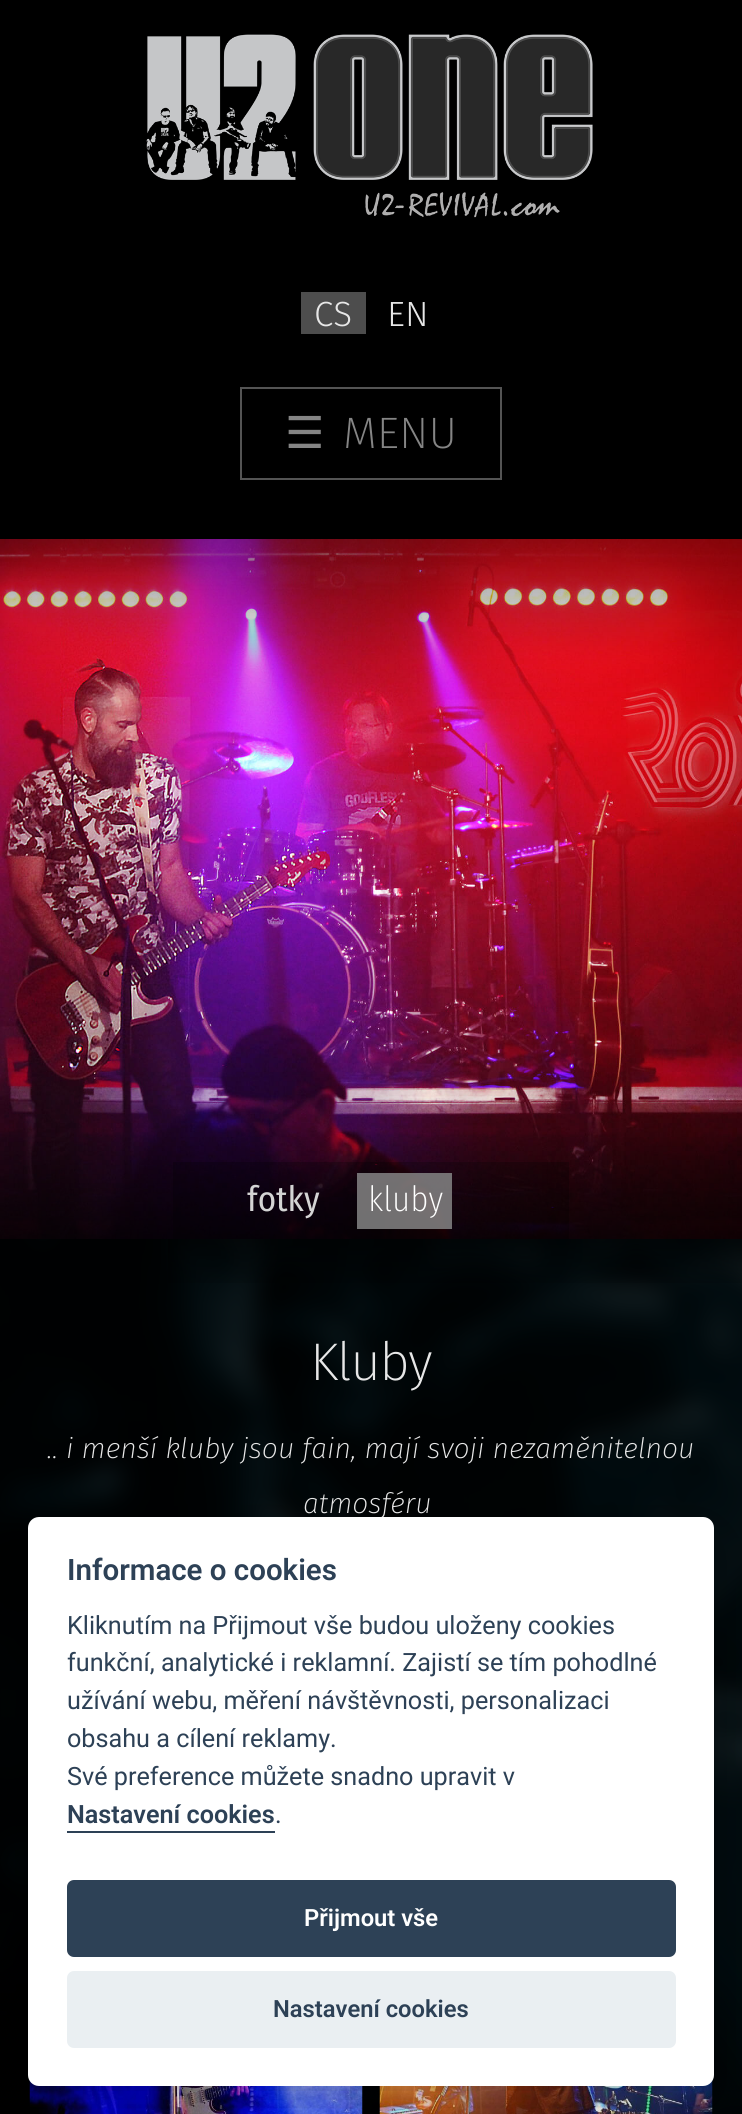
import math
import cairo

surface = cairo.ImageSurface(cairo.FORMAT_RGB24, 742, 2114)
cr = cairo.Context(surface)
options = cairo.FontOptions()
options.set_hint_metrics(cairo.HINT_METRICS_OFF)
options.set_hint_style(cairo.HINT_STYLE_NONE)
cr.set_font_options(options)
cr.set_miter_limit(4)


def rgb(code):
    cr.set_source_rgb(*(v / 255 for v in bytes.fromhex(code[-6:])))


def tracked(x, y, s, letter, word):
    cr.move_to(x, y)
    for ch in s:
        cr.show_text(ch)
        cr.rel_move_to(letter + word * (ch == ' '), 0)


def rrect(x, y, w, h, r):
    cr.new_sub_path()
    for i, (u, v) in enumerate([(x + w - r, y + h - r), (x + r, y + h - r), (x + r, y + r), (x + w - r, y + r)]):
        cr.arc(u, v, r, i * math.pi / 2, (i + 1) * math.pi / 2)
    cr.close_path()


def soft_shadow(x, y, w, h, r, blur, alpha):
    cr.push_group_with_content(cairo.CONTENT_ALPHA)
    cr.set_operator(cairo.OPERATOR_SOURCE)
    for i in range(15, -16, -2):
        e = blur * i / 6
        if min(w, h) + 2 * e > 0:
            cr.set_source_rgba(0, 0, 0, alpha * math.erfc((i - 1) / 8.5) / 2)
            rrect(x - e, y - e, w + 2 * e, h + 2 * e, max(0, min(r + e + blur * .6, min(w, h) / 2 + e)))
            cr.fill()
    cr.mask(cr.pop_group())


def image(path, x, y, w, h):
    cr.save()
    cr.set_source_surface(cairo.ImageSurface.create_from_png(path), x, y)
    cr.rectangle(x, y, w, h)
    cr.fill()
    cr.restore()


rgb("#000000")
cr.paint()
image("img/1.png", 146, 34, 447, 184)
rgb("#4d4d4d")
cr.rectangle(301, 292, 65, 42)
cr.fill()
cr.rectangle(241, 388, 260, 91)
rgb("#545454")
cr.stroke()
image("img/2.png", 0, 539, 742, 700)
cr.set_source_rgba(0, 0, 0, 0.25)
cr.rectangle(173, 1162, 396, 77)
cr.fill()
cr.set_source_rgba(0.522, 0.522, 0.522, 0.84)
cr.rectangle(357, 1173, 95, 56)
cr.fill()
image("img/5.png", 0, 1239, 742, 875)
gradient = cairo.LinearGradient(371, 1239, 371, 1327)
gradient.add_color_stop_rgba(0, 0, 0, 0, 0.5)
gradient.add_color_stop_rgba(0.45, 0, 0, 0, 0.15)
gradient.add_color_stop_rgba(0.7, 0, 0, 0, 0.05)
gradient.add_color_stop_rgba(1, 0, 0, 0, 0)
cr.set_source(gradient)
cr.rectangle(168, 1239, 574, 44)
cr.fill()
image("img/3.png", 29, 2079, 334, 35)
image("img/4.png", 379, 2079, 334, 35)
rgb("#020203")
soft_shadow(28, 1535, 686, 569, 11, 26, 0.28)
cr.select_font_face("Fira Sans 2 Light")
cr.set_font_size(35)
rgb("#e7e7e7")
cr.move_to(314, 326)
cr.show_text("CS")
cr.move_to(387, 326)
cr.show_text("EN")
cr.select_font_face("DejaVu Sans")
cr.set_font_size(44)
rgb("#858585")
cr.move_to(285, 448)
cr.show_text("☰")
cr.select_font_face("Fira Sans Light")
cr.move_to(343, 448)
cr.show_text("MENU")
cr.select_font_face("Fira Sans Condensed")
cr.set_font_size(35)
rgb("#d4d4d4")
cr.move_to(247, 1211)
cr.show_text("fotky")
cr.select_font_face("Fira Sans Condensed Light")
rgb("#ffffff")
cr.move_to(368, 1211)
cr.show_text("kluby")
cr.select_font_face("Fira Sans Light")
cr.set_font_size(53)
rgb("#e7e7e7")
tracked(310, 1380, "Kluby", -1.5, 0)
cr.select_font_face("Fira Sans Light", cairo.FONT_SLANT_ITALIC)
cr.set_font_size(28.35)
cr.move_to(47, 1458)
cr.show_text(".. i menší kluby jsou fain, mají svoji nezaměnitelnou")
cr.move_to(303, 1513)
cr.show_text("atmosféru")
rgb("#ffffff")
rrect(28, 1517, 686, 569, 11)
cr.fill()
cr.select_font_face("Roboto SemiBold")
cr.set_font_size(29.5)
rgb("#2d4156")
cr.move_to(67, 1580)
cr.show_text("Informace o cookies")
cr.select_font_face("Roboto")
cr.set_font_size(25.2)
for x, y, s in [
    (67, 1634, "Kliknutím na Přijmout vše budou uloženy cookies"),
    (67, 1671, "funkční, analytické i reklamní. Zajistí se tím pohodlné"),
    (67, 1709, "užívání webu, měření návštěvnosti, personalizaci"),
    (67, 1747, "obsahu a cílení reklamy."),
    (67, 1785, "Své preference můžete snadno upravit v"),
]:
    cr.move_to(x, y)
    cr.show_text(s)
cr.select_font_face("Roboto SemiBold")
cr.move_to(67, 1823)
cr.show_text("Nastavení cookies")
cr.rectangle(67, 1831, 208, 2)
cr.fill()
cr.select_font_face("Roboto")
cr.move_to(275, 1823)
cr.show_text(".")
rrect(67, 1880, 609, 77, 7)
cr.fill()
cr.select_font_face("Roboto SemiBold")
cr.set_font_size(23.75)
rgb("#ffffff")
cr.move_to(304, 1926)
cr.show_text("Přijmout vše")
rgb("#eaeff2")
rrect(67, 1971, 609, 77, 7)
cr.fill()
rgb("#2d4156")
cr.move_to(273, 2017)
cr.show_text("Nastavení cookies")
surface.write_to_png("page.png")
